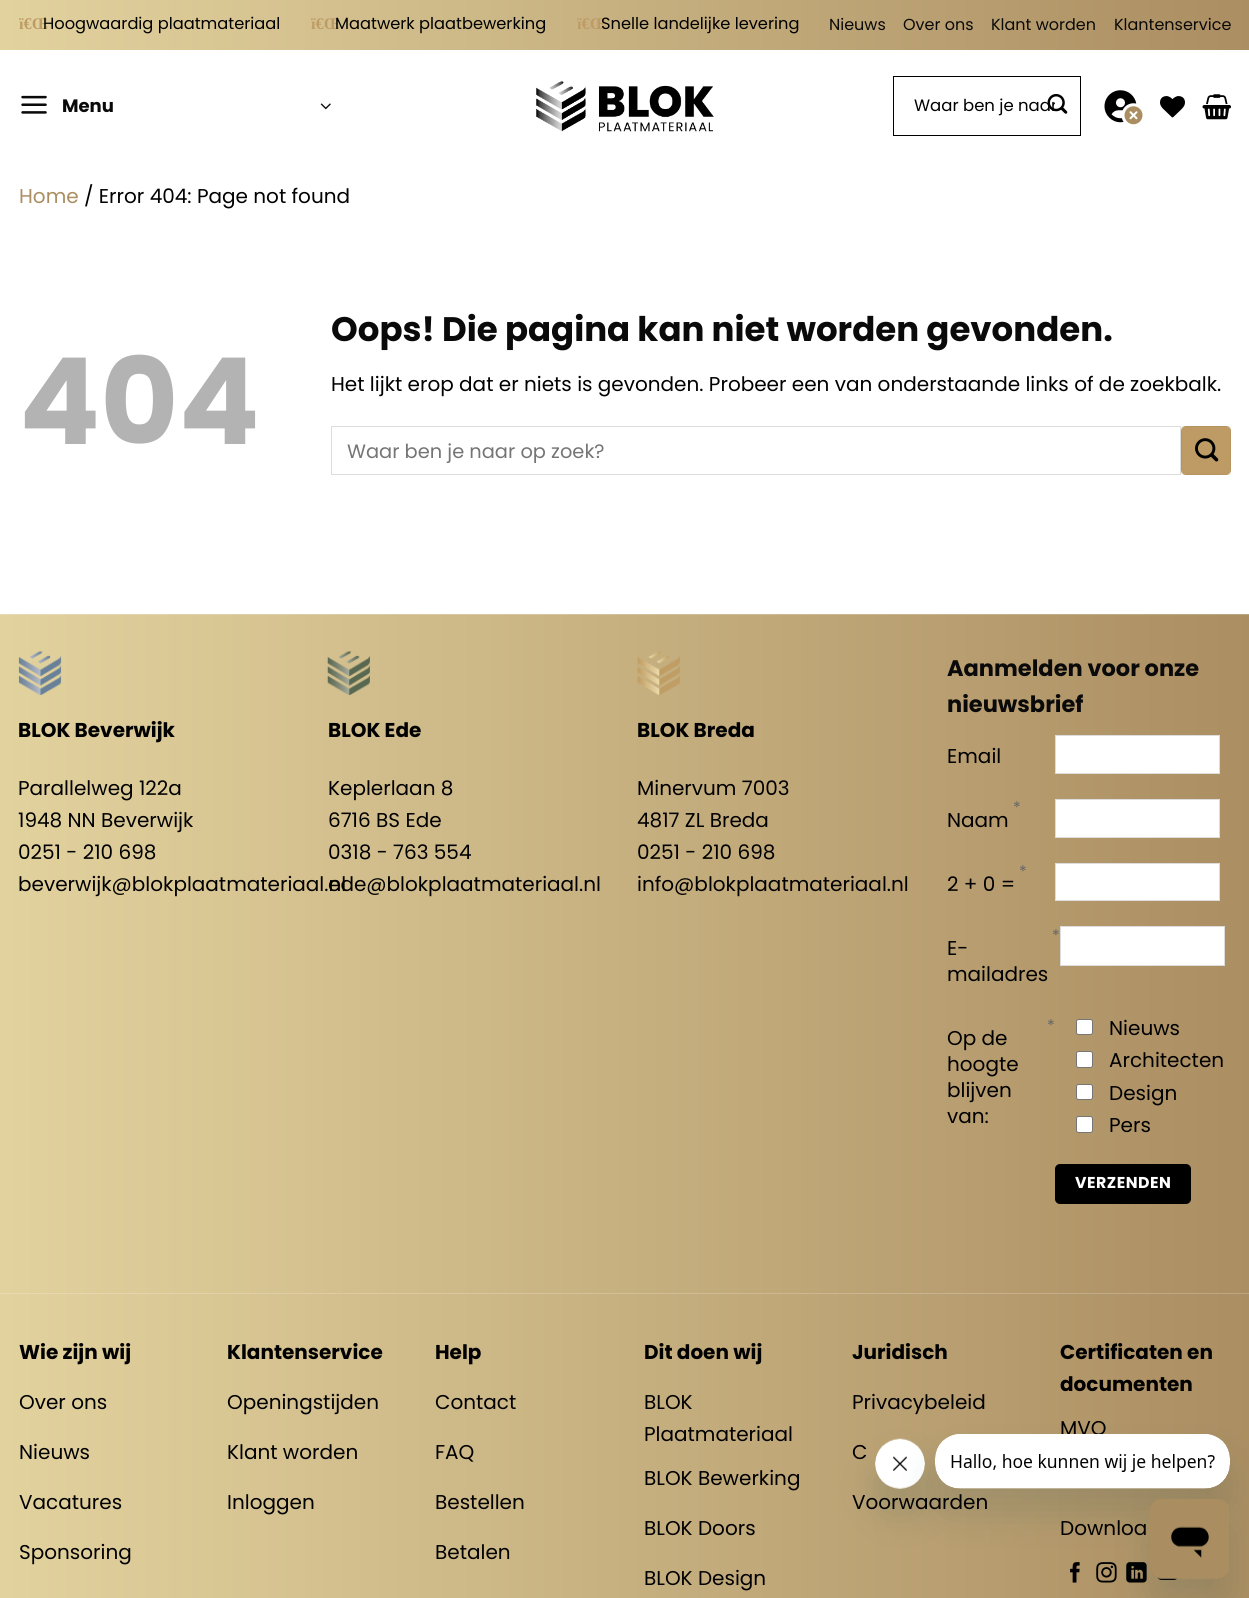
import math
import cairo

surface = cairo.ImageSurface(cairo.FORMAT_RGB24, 1249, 1598)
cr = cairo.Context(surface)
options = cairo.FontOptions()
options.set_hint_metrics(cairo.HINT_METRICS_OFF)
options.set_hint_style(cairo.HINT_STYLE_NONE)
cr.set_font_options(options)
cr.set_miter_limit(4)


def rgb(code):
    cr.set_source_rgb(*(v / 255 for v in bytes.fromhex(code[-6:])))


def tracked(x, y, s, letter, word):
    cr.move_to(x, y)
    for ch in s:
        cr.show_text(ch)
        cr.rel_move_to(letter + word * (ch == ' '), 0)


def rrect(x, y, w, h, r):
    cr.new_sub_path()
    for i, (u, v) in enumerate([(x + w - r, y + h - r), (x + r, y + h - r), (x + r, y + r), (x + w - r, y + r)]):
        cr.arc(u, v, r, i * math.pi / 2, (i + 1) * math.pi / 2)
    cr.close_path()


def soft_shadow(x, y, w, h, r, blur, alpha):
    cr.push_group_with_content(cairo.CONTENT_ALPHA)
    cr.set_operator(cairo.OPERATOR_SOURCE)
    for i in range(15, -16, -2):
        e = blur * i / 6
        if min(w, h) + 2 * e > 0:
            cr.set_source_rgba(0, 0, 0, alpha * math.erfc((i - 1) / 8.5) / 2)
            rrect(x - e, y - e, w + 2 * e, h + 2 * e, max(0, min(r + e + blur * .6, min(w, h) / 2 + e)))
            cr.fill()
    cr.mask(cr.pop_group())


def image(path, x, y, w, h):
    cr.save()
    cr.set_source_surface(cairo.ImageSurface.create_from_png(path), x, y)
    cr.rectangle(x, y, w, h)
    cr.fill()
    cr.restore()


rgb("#ffffff")
cr.paint()
gradient = cairo.LinearGradient(0, 25, 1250, 25)
gradient.add_color_stop_rgba(0, 0.886, 0.824, 0.62, 1)
gradient.add_color_stop_rgba(1, 0.671, 0.557, 0.384, 1)
cr.set_source(gradient)
cr.rectangle(0, 0, 1249, 50)
cr.fill()
image("img/1.png", 21, 95, 26, 19)
image("img/2.png", 320, 103, 11, 7)
image("img/3.png", 536, 81, 178, 51)
cr.rectangle(893.5, 76.5, 187, 59)
rgb("#000000")
cr.set_line_width(1)
cr.stroke()
image("img/5.png", 1104, 90, 39, 35)
image("img/6.png", 1160, 96, 25, 22)
image("img/7.png", 1202, 94, 29, 26)
cr.rectangle(331.5, 426.5, 849, 48)
rgb("#dddddd")
cr.stroke()
rgb("#be9b64")
rrect(1181, 426, 50, 49, 5)
cr.fill()
cr.rectangle(1181.5, 426.5, 49, 48)
cr.set_source_rgba(0, 0, 0, 0.05)
cr.stroke()
image("img/8.png", 1195, 438, 24, 24)
gradient = cairo.LinearGradient(0, 953, 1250, 953)
gradient.add_color_stop_rgba(0, 0.886, 0.824, 0.62, 1)
gradient.add_color_stop_rgba(1, 0.671, 0.557, 0.384, 1)
cr.set_source(gradient)
cr.rectangle(0, 615, 1249, 678)
cr.fill()
gradient = cairo.LinearGradient(0, 953, 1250, 953)
gradient.add_color_stop_rgba(0, 0.91, 0.859, 0.694, 1)
gradient.add_color_stop_rgba(1, 0.737, 0.647, 0.506, 1)
cr.set_source(gradient)
cr.rectangle(0, 614, 1249, 1)
cr.fill()
image("img/9.png", 18, 651, 44, 44)
image("img/10.png", 327, 651, 43, 44)
image("img/11.png", 637, 651, 43, 44)
rgb("#ffffff")
cr.rectangle(1055.5, 735.5, 164, 38)
cr.fill_preserve()
rgb("#dddddd")
cr.stroke()
rgb("#ffffff")
cr.rectangle(1055.5, 799.5, 164, 38)
cr.fill_preserve()
rgb("#dddddd")
cr.stroke()
rgb("#ffffff")
cr.rectangle(1055.5, 863.5, 164, 37)
cr.fill_preserve()
rgb("#dddddd")
cr.stroke()
rgb("#ffffff")
cr.rectangle(1060.5, 926.5, 164, 39)
cr.fill_preserve()
rgb("#dddddd")
cr.stroke()
rgb("#ffffff")
rrect(1076.5, 1019.5, 16, 15, 2)
cr.fill_preserve()
rgb("#767676")
cr.stroke()
rgb("#ffffff")
rrect(1076.5, 1051.5, 16, 16, 2)
cr.fill_preserve()
rgb("#767676")
cr.stroke()
rgb("#ffffff")
rrect(1076.5, 1084.5, 16, 15, 2)
cr.fill_preserve()
rgb("#767676")
cr.stroke()
rgb("#ffffff")
rrect(1076.5, 1116.5, 16, 16, 2)
cr.fill_preserve()
rgb("#767676")
cr.stroke()
rgb("#000000")
rrect(1055, 1164, 136, 40, 5)
cr.fill()
gradient = cairo.LinearGradient(0, 1524, 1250, 1524)
gradient.add_color_stop_rgba(0, 0.886, 0.824, 0.62, 1)
gradient.add_color_stop_rgba(1, 0.671, 0.557, 0.384, 1)
cr.set_source(gradient)
cr.rectangle(0, 1294, 1249, 304)
cr.fill()
gradient = cairo.LinearGradient(0, 1524, 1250, 1524)
gradient.add_color_stop_rgba(0, 0.91, 0.859, 0.694, 1)
gradient.add_color_stop_rgba(1, 0.737, 0.647, 0.506, 1)
cr.set_source(gradient)
cr.rectangle(0, 1293, 1249, 1)
cr.fill()
image("img/12.png", 1070, 1562, 10, 21)
image("img/13.png", 1096, 1562, 21, 21)
image("img/14.png", 1126, 1562, 21, 21)
image("img/15.png", 1157, 1577, 21, 3)
rgb("#17494d")
soft_shadow(875, 1464, 50, 50, 25, 19, 0.15)
image("img/17.png", 875, 1438, 50, 51)
soft_shadow(935, 1459, 295, 55, 25, 19, 0.15)
cr.select_font_face("Liberation Serif", cairo.FONT_SLANT_NORMAL, cairo.FONT_WEIGHT_BOLD)
cr.set_font_size(16.25)
rgb("#be9b64")
cr.move_to(19, 29)
cr.show_text("ï€Œ")
cr.select_font_face("Poppins")
rgb("#000000")
cr.move_to(43, 29)
cr.show_text("Hoogwaardig plaatmateriaal")
cr.select_font_face("Liberation Serif", cairo.FONT_SLANT_NORMAL, cairo.FONT_WEIGHT_BOLD)
rgb("#be9b64")
cr.move_to(311, 29)
cr.show_text("ï€Œ")
cr.select_font_face("Poppins")
rgb("#000000")
cr.move_to(335, 29)
cr.show_text("Maatwerk plaatbewerking")
cr.select_font_face("Liberation Serif", cairo.FONT_SLANT_NORMAL, cairo.FONT_WEIGHT_BOLD)
rgb("#be9b64")
cr.move_to(577, 29)
cr.show_text("ï€Œ")
cr.select_font_face("Poppins")
rgb("#000000")
cr.move_to(601, 29)
cr.show_text("Snelle landelijke levering")
cr.set_font_size(16)
rgb("#0a0a0a")
for x, y, s in [
    (829, 30, "Nieuws"),
    (903, 30, "Over ons"),
    (991, 30, "Klant worden"),
    (1114, 30, "Klantenservice"),
]:
    cr.move_to(x, y)
    cr.show_text(s)
cr.select_font_face("Poppins", cairo.FONT_SLANT_NORMAL, cairo.FONT_WEIGHT_BOLD)
cr.set_font_size(18)
cr.move_to(62, 112)
cr.show_text("Menu")
cr.save()
cr.rectangle(914, 94, 141, 25)
cr.clip()
cr.select_font_face("Poppins")
cr.set_font_size(16.5)
rgb("#000000")
cr.move_to(914, 111)
cr.show_text("Waar ben je naar")
cr.restore()
image("img/4.png", 1047, 93, 21, 21)
cr.select_font_face("Poppins")
cr.set_font_size(20)
rgb("#ab8e62")
cr.move_to(19, 203)
cr.show_text("Home")
rgb("#000000")
cr.move_to(84, 203)
cr.show_text("/ Error 404: Page not found")
cr.select_font_face("Poppins", cairo.FONT_SLANT_NORMAL, cairo.FONT_WEIGHT_BOLD)
cr.set_font_size(120)
rgb("#b3b3b3")
cr.move_to(19, 444)
cr.show_text("404")
cr.set_font_size(34)
rgb("#0a0a0a")
cr.move_to(331, 341)
cr.show_text("Oops! Die pagina kan niet worden gevonden.")
cr.select_font_face("Poppins")
cr.set_font_size(20)
rgb("#000000")
cr.move_to(331, 391)
cr.show_text("Het lijkt erop dat er niets is gevonden. Probeer een van onderstaande links of de zoekbalk.")
cr.set_font_size(19.4)
rgb("#757575")
cr.move_to(347, 458)
cr.show_text("Waar ben je naar op zoek?")
cr.select_font_face("Poppins", cairo.FONT_SLANT_NORMAL, cairo.FONT_WEIGHT_BOLD)
cr.set_font_size(20)
rgb("#000000")
cr.move_to(18, 737)
cr.show_text("BLOK Beverwijk")
cr.select_font_face("Poppins")
for x, y, s in [
    (18, 795, "Parallelweg 122a"),
    (18, 827, "1948 NN Beverwijk"),
    (18, 859, "0251 - 210 698"),
    (18, 891, "beverwijk@blokplaatmateriaal.nl"),
]:
    cr.move_to(x, y)
    cr.show_text(s)
cr.select_font_face("Poppins", cairo.FONT_SLANT_NORMAL, cairo.FONT_WEIGHT_BOLD)
cr.move_to(328, 737)
cr.show_text("BLOK Ede")
cr.select_font_face("Poppins")
for x, y, s in [
    (328, 795, "Keplerlaan 8"),
    (328, 827, "6716 BS Ede"),
    (328, 859, "0318 - 763 554"),
    (328, 891, "ede@blokplaatmateriaal.nl"),
]:
    cr.move_to(x, y)
    cr.show_text(s)
cr.select_font_face("Poppins", cairo.FONT_SLANT_NORMAL, cairo.FONT_WEIGHT_BOLD)
cr.move_to(637, 737)
cr.show_text("BLOK Breda")
cr.select_font_face("Poppins")
for x, y, s in [
    (637, 795, "Minervum 7003"),
    (637, 827, "4817 ZL Breda"),
    (637, 859, "0251 - 210 698"),
    (637, 891, "info@blokplaatmateriaal.nl"),
]:
    cr.move_to(x, y)
    cr.show_text(s)
cr.select_font_face("Poppins", cairo.FONT_SLANT_NORMAL, cairo.FONT_WEIGHT_BOLD)
cr.set_font_size(22.5)
rgb("#0a0a0a")
cr.move_to(947, 676)
cr.show_text("Aanmelden voor onze")
cr.move_to(947, 712)
cr.show_text("nieuwsbrief")
cr.select_font_face("Poppins")
cr.set_font_size(20)
rgb("#000000")
cr.move_to(947, 763)
cr.show_text("Email")
cr.set_font_size(16)
rgb("#666666")
cr.move_to(1013, 813)
cr.show_text("*")
cr.set_font_size(20)
rgb("#000000")
cr.move_to(947, 827)
cr.show_text("Naam")
cr.set_font_size(16)
rgb("#666666")
cr.move_to(1019, 877)
cr.show_text("*")
cr.set_font_size(20)
rgb("#000000")
cr.move_to(947, 891)
cr.show_text("2 + 0 =")
cr.set_font_size(16)
rgb("#666666")
cr.move_to(1052, 941)
cr.show_text("*")
cr.set_font_size(20)
rgb("#000000")
cr.move_to(947, 955)
cr.show_text("E-")
cr.move_to(947, 981)
cr.show_text("mailadres")
cr.set_font_size(16)
rgb("#666666")
cr.move_to(1047, 1031)
cr.show_text("*")
cr.set_font_size(20)
rgb("#000000")
for x, y, s in [
    (947, 1045, "Op de"),
    (947, 1071, "hoogte"),
    (947, 1097, "blijven"),
    (947, 1123, "van:"),
    (1109, 1035, "Nieuws"),
    (1109, 1067, "Architecten"),
    (1109, 1100, "Design"),
    (1109, 1132, "Pers"),
]:
    cr.move_to(x, y)
    cr.show_text(s)
cr.select_font_face("Poppins", cairo.FONT_SLANT_NORMAL, cairo.FONT_WEIGHT_BOLD)
cr.set_font_size(15.75)
rgb("#ffffff")
tracked(1075, 1188, "VERZENDEN", 0.5, 0)
cr.set_font_size(20)
rgb("#000000")
cr.move_to(19, 1359)
cr.show_text("Wie zijn wij")
cr.select_font_face("Poppins")
for x, y, s in [
    (19, 1409, "Over ons"),
    (19, 1459, "Nieuws"),
    (19, 1509, "Vacatures"),
    (19, 1559, "Sponsoring"),
]:
    cr.move_to(x, y)
    cr.show_text(s)
cr.select_font_face("Poppins", cairo.FONT_SLANT_NORMAL, cairo.FONT_WEIGHT_BOLD)
cr.move_to(227, 1359)
cr.show_text("Klantenservice")
cr.select_font_face("Poppins")
for x, y, s in [
    (227, 1409, "Openingstijden"),
    (227, 1459, "Klant worden"),
    (227, 1509, "Inloggen"),
]:
    cr.move_to(x, y)
    cr.show_text(s)
cr.select_font_face("Poppins", cairo.FONT_SLANT_NORMAL, cairo.FONT_WEIGHT_BOLD)
cr.move_to(435, 1359)
cr.show_text("Help")
cr.select_font_face("Poppins")
for x, y, s in [
    (435, 1409, "Contact"),
    (435, 1459, "FAQ"),
    (435, 1509, "Bestellen"),
    (435, 1559, "Betalen"),
]:
    cr.move_to(x, y)
    cr.show_text(s)
cr.select_font_face("Poppins", cairo.FONT_SLANT_NORMAL, cairo.FONT_WEIGHT_BOLD)
cr.move_to(644, 1359)
cr.show_text("Dit doen wij")
cr.select_font_face("Poppins")
for x, y, s in [
    (644, 1409, "BLOK"),
    (644, 1441, "Plaatmateriaal"),
    (644, 1485, "BLOK Bewerking"),
    (644, 1535, "BLOK Doors"),
    (644, 1585, "BLOK Design"),
]:
    cr.move_to(x, y)
    cr.show_text(s)
cr.select_font_face("Poppins", cairo.FONT_SLANT_NORMAL, cairo.FONT_WEIGHT_BOLD)
cr.move_to(852, 1359)
cr.show_text("Juridisch")
cr.select_font_face("Poppins")
for x, y, s in [
    (852, 1409, "Privacybeleid"),
    (852, 1459, "C"),
    (852, 1509, "Voorwaarden"),
]:
    cr.move_to(x, y)
    cr.show_text(s)
cr.select_font_face("Poppins", cairo.FONT_SLANT_NORMAL, cairo.FONT_WEIGHT_BOLD)
cr.move_to(1060, 1359)
cr.show_text("Certificaten en")
cr.move_to(1060, 1391)
cr.show_text("documenten")
cr.select_font_face("Poppins")
cr.move_to(1060, 1435)
cr.show_text("MVO")
cr.move_to(1060, 1535)
cr.show_text("Downloa")
image("img/16.png", 935, 1434, 295, 55)
rgb("#17494d")
soft_shadow(1150, 1524, 80, 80, 13, 19, 0.15)
image("img/18.png", 1150, 1499, 79, 80)
surface.write_to_png("page.png")
